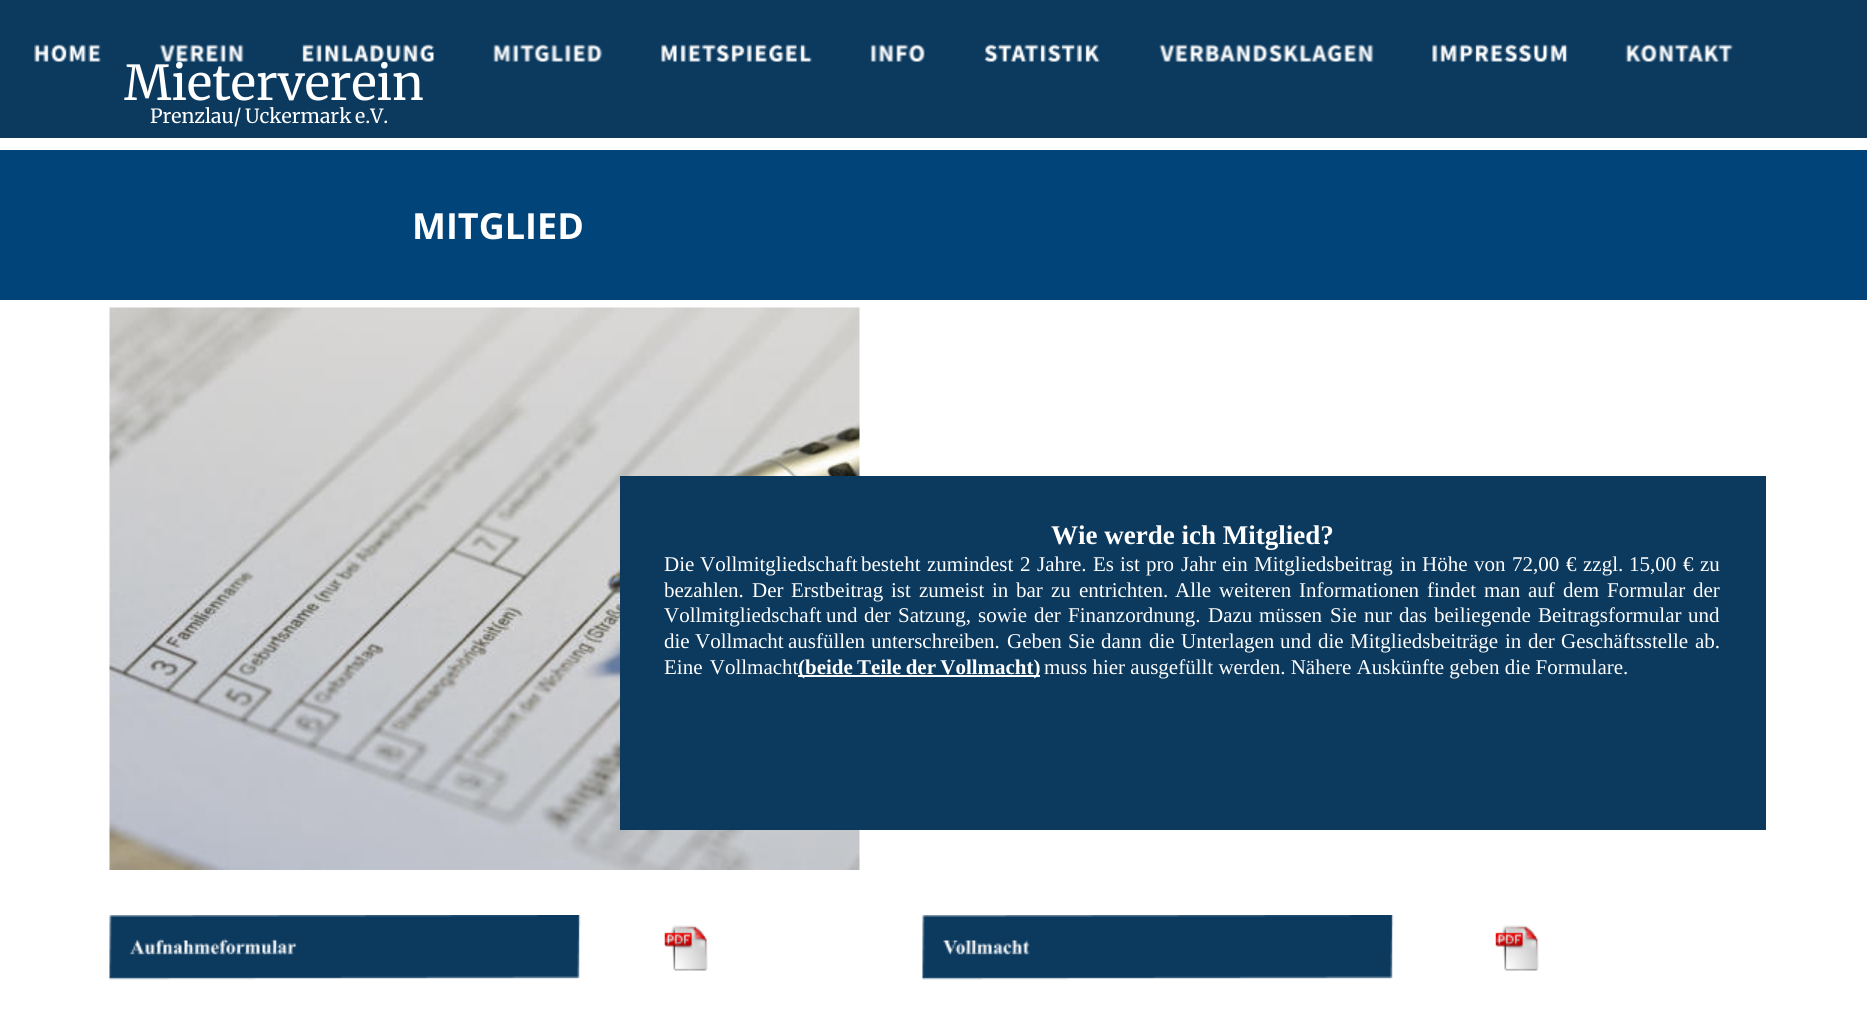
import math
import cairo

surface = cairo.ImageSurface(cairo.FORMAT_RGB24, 1867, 1034)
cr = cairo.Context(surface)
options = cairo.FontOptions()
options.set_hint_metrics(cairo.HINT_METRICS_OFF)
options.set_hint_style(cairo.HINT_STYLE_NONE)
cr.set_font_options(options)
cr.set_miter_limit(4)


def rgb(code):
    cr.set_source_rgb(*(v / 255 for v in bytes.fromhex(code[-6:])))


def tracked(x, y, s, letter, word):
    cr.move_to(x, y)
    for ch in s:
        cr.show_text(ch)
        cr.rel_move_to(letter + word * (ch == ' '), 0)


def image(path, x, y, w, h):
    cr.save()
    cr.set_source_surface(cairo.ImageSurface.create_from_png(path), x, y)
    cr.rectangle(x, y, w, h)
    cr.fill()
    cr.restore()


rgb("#ffffff")
cr.paint()
rgb("#0c3a5f")
cr.rectangle(0, 0, 1867, 138)
cr.fill()
image("img/1.png", 34, 44, 67, 18)
image("img/2.png", 159, 44, 85, 18)
image("img/3.png", 302, 44, 132, 18)
image("img/4.png", 493, 44, 110, 18)
image("img/5.png", 661, 44, 151, 18)
image("img/6.png", 870, 44, 55, 18)
image("img/7.png", 984, 44, 116, 18)
image("img/8.png", 1159, 44, 215, 18)
image("img/9.png", 1432, 44, 136, 18)
image("img/10.png", 1625, 44, 109, 18)
rgb("#00447a")
cr.rectangle(0, 150, 1867, 150)
cr.fill()
image("img/11.png", 109, 307, 751, 563)
rgb("#0c3a5f")
cr.rectangle(620, 476, 1146, 354)
cr.fill()
rgb("#ffffff")
cr.rectangle(798, 675, 242, 2)
cr.fill()
image("img/12.png", 109, 915, 472, 65)
image("img/13.png", 129, 938, 168, 17)
image("img/14.png", 664, 925, 44, 46)
image("img/12.png", 922, 915, 472, 65)
image("img/15.png", 943, 940, 87, 15)
image("img/16.png", 1495, 925, 44, 46)
cr.select_font_face("Merriweather Light")
cr.set_font_size(48)
cr.move_to(124, 100)
cr.show_text("Mieterverein")
cr.set_font_size(19.5)
tracked(150, 123, "Prenzlau/ Uckermark e.V.", 0, -1)
cr.select_font_face("Open Sans", cairo.FONT_SLANT_NORMAL, cairo.FONT_WEIGHT_BOLD)
cr.set_font_size(36)
cr.move_to(412, 239)
cr.show_text("MITGLIED")
cr.select_font_face("Liberation Serif", cairo.FONT_SLANT_NORMAL, cairo.FONT_WEIGHT_BOLD)
cr.set_font_size(27)
cr.move_to(1051, 544)
cr.show_text("Wie werde ich Mitglied?")
cr.select_font_face("Liberation Serif")
cr.set_font_size(21)
for x, y, s in [
    (664, 571, "Die"),
    (700, 571, "Vollmitgliedschaft"),
    (861, 571, "besteht"),
    (927, 571, "zumindest"),
    (1020, 571, "2"),
    (1037, 571, "Jahre."),
    (1093, 571, "Es"),
    (1120, 571, "ist"),
    (1146, 571, "pro"),
    (1181, 571, "Jahr"),
    (1222, 571, "ein"),
    (1254, 571, "Mitgliedsbeitrag"),
    (1400, 571, "in"),
    (1422, 571, "Höhe"),
    (1474, 571, "von"),
    (1512, 571, "72,00"),
    (1566, 571, "€"),
    (1583, 571, "zzgl."),
    (1629, 571, "15,00"),
    (1683, 571, "€"),
    (1700, 571, "zu"),
    (664, 597, "bezahlen."),
    (752, 597, "Der"),
    (791, 597, "Erstbeitrag"),
    (891, 597, "ist"),
    (919, 597, "zumeist"),
    (992, 597, "in"),
    (1016, 597, "bar"),
    (1051, 597, "zu"),
    (1079, 597, "entrichten."),
    (1175, 597, "Alle"),
    (1219, 597, "weiteren"),
    (1299, 597, "Informationen"),
    (1427, 597, "findet"),
    (1484, 597, "man"),
    (1528, 597, "auf"),
    (1563, 597, "dem"),
    (1607, 597, "Formular"),
    (1693, 597, "der"),
    (664, 622, "Vollmitgliedschaft"),
    (826, 622, "und"),
    (864, 622, "der"),
    (898, 622, "Satzung,"),
    (978, 622, "sowie"),
    (1034, 622, "der"),
    (1068, 622, "Finanzordnung."),
    (1208, 622, "Dazu"),
    (1259, 622, "müssen"),
    (1330, 622, "Sie"),
    (1364, 622, "nur"),
    (1399, 622, "das"),
    (1434, 622, "beiliegende"),
    (1538, 622, "Beitragsformular"),
    (1688, 622, "und"),
    (664, 648, "die"),
    (695, 648, "Vollmacht"),
    (788, 648, "ausfüllen"),
    (871, 648, "unterschreiben."),
    (1007, 648, "Geben"),
    (1068, 648, "Sie"),
    (1101, 648, "dann"),
    (1149, 648, "die"),
    (1181, 648, "Unterlagen"),
    (1280, 648, "und"),
    (1318, 648, "die"),
    (1350, 648, "Mitgliedsbeiträge"),
    (1505, 648, "in"),
    (1528, 648, "der"),
    (1561, 648, "Geschäftsstelle"),
    (1695, 648, "ab."),
]:
    cr.move_to(x, y)
    cr.show_text(s)
tracked(664, 674, "Eine Vollmacht", 0, 2)
cr.select_font_face("Liberation Serif", cairo.FONT_SLANT_NORMAL, cairo.FONT_WEIGHT_BOLD)
tracked(798, 674, "(beide Teile der Vollmacht)", 0, -1)
cr.select_font_face("Liberation Serif")
cr.move_to(1044, 674)
cr.show_text("muss hier ausgefüllt werden. Nähere Auskünfte geben die Formulare.")
surface.write_to_png("page.png")
